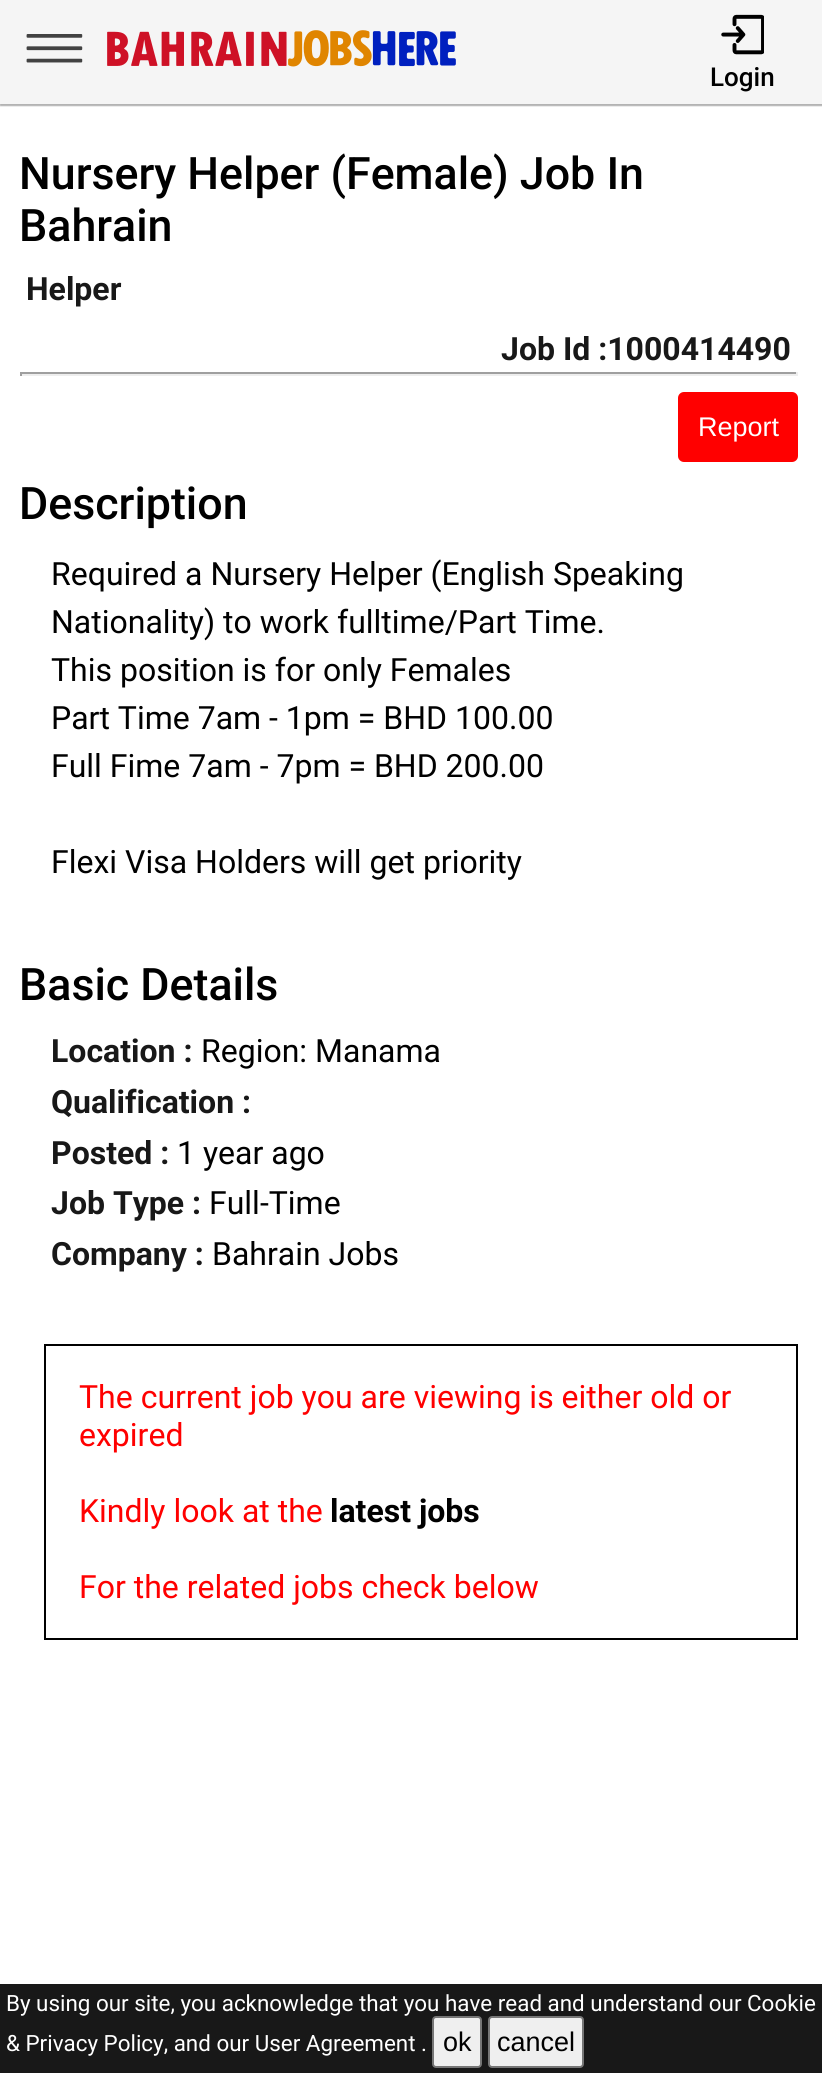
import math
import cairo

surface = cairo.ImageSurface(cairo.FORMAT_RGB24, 822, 2073)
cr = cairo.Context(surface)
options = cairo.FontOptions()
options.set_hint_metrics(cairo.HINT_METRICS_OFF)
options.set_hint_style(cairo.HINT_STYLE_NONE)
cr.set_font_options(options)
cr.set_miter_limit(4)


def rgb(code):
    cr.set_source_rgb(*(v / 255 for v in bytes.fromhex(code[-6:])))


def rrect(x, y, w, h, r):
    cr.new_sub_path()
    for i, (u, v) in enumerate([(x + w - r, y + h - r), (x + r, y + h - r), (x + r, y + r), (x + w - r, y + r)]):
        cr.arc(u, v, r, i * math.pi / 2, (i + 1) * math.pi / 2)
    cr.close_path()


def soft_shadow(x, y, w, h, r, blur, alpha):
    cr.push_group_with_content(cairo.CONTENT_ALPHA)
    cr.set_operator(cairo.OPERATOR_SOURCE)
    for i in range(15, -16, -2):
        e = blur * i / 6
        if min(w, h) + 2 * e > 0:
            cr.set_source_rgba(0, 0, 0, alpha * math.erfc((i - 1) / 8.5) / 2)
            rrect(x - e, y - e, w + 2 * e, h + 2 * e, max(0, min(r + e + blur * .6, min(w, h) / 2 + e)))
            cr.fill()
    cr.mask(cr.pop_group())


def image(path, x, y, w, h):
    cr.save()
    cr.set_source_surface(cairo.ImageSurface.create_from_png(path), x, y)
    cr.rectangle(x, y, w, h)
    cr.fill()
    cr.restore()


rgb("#ffffff")
cr.paint()
rgb("#000000")
soft_shadow(0, 0, 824, 106, 0, 0.5, 0.3)
rgb("#f5f5f5")
cr.rectangle(0, 0, 822, 104)
cr.fill()
image("img/1.png", 26, 34, 57, 29)
image("img/2.png", 107, 30, 349, 37)
image("img/3.png", 721, 14, 43, 41)
for x, y, w, h, color in [
    (20, 372, 778, 2, "#9f9f9f"),
    (796, 372, 2, 4, "#eeeeee"),
    (20, 374, 778, 2, "#eeeeee"),
    (20, 372, 2, 4, "#9f9f9f"),
]:
    rgb(color)
    cr.rectangle(x, y, w, h)
    cr.fill()
rgb("#ff0000")
rrect(678, 392, 120, 70, 6)
cr.fill()
cr.rectangle(45, 1345, 752, 294)
rgb("#000000")
cr.stroke()
rgb("#181818")
cr.rectangle(0, 1984, 822, 89)
cr.fill()
rgb("#efefef")
rrect(433, 2017, 48, 50, 3)
cr.fill_preserve()
rgb("#767676")
cr.stroke()
rgb("#efefef")
rrect(489, 2017, 94, 50, 3)
cr.fill_preserve()
rgb("#767676")
cr.stroke()
cr.select_font_face("Roboto Medium")
cr.set_font_size(26)
rgb("#000000")
cr.move_to(710, 86)
cr.show_text("Login")
cr.set_font_size(44.75)
cr.move_to(19, 189)
cr.show_text("Nursery Helper (Female) Job In")
cr.move_to(19, 241)
cr.show_text("Bahrain")
cr.select_font_face("Roboto", cairo.FONT_SLANT_NORMAL, cairo.FONT_WEIGHT_BOLD)
cr.set_font_size(32)
rgb("#181818")
cr.move_to(26, 300)
cr.show_text("Helper")
cr.move_to(501, 360)
cr.show_text("Job Id :1000414490")
cr.select_font_face("Liberation Sans")
cr.set_font_size(27)
rgb("#ffffff")
cr.move_to(698, 436)
cr.show_text("Report")
cr.select_font_face("Roboto Medium")
cr.set_font_size(44.75)
rgb("#000000")
cr.move_to(19, 519)
cr.show_text("Description")
cr.select_font_face("Roboto")
cr.set_font_size(32)
for x, y, s in [
    (51, 585, "Required a Nursery Helper (English Speaking"),
    (51, 633, "Nationality) to work fulltime/Part Time."),
    (51, 681, "This position is for only Females"),
    (51, 729, "Part Time 7am - 1pm = BHD 100.00"),
    (51, 777, "Full Fime 7am - 7pm = BHD 200.00"),
    (51, 873, "Flexi Visa Holders will get priority"),
]:
    cr.move_to(x, y)
    cr.show_text(s)
cr.select_font_face("Roboto Medium")
cr.set_font_size(44.75)
cr.move_to(19, 1000)
cr.show_text("Basic Details")
cr.select_font_face("Roboto", cairo.FONT_SLANT_NORMAL, cairo.FONT_WEIGHT_BOLD)
cr.set_font_size(32)
rgb("#181818")
cr.move_to(51, 1062)
cr.show_text("Location :")
cr.select_font_face("Roboto")
rgb("#000000")
cr.move_to(201, 1062)
cr.show_text("Region: Manama")
cr.select_font_face("Roboto", cairo.FONT_SLANT_NORMAL, cairo.FONT_WEIGHT_BOLD)
rgb("#181818")
cr.move_to(51, 1113)
cr.show_text("Qualification :")
cr.move_to(51, 1164)
cr.show_text("Posted :")
cr.select_font_face("Roboto")
rgb("#000000")
cr.move_to(177, 1164)
cr.show_text("1 year ago")
cr.select_font_face("Roboto", cairo.FONT_SLANT_NORMAL, cairo.FONT_WEIGHT_BOLD)
rgb("#181818")
cr.move_to(51, 1214)
cr.show_text("Job Type :")
cr.select_font_face("Roboto")
rgb("#000000")
cr.move_to(209, 1214)
cr.show_text("Full-Time")
cr.select_font_face("Roboto", cairo.FONT_SLANT_NORMAL, cairo.FONT_WEIGHT_BOLD)
rgb("#181818")
cr.move_to(51, 1265)
cr.show_text("Company :")
cr.select_font_face("Roboto")
rgb("#000000")
cr.move_to(212, 1265)
cr.show_text("Bahrain Jobs")
rgb("#ff0000")
for x, y, s in [
    (79, 1408, "The current job you are viewing is either old or"),
    (79, 1446, "expired"),
    (79, 1522, "Kindly look at the"),
]:
    cr.move_to(x, y)
    cr.show_text(s)
cr.select_font_face("Roboto", cairo.FONT_SLANT_NORMAL, cairo.FONT_WEIGHT_BOLD)
rgb("#000000")
cr.move_to(330, 1522)
cr.show_text("latest jobs")
cr.select_font_face("Roboto")
rgb("#ff0000")
cr.move_to(79, 1598)
cr.show_text("For the related jobs check below")
cr.set_font_size(22.4)
rgb("#ffffff")
cr.move_to(6, 2011)
cr.show_text("By using our site, you acknowledge that you have read and understand our Cookie")
cr.move_to(6, 2051)
cr.show_text("& Privacy Policy, and our User Agreement .")
cr.select_font_face("Liberation Sans")
cr.set_font_size(27)
rgb("#000000")
cr.move_to(443, 2051)
cr.show_text("ok")
cr.move_to(497, 2051)
cr.show_text("cancel")
surface.write_to_png("page.png")
